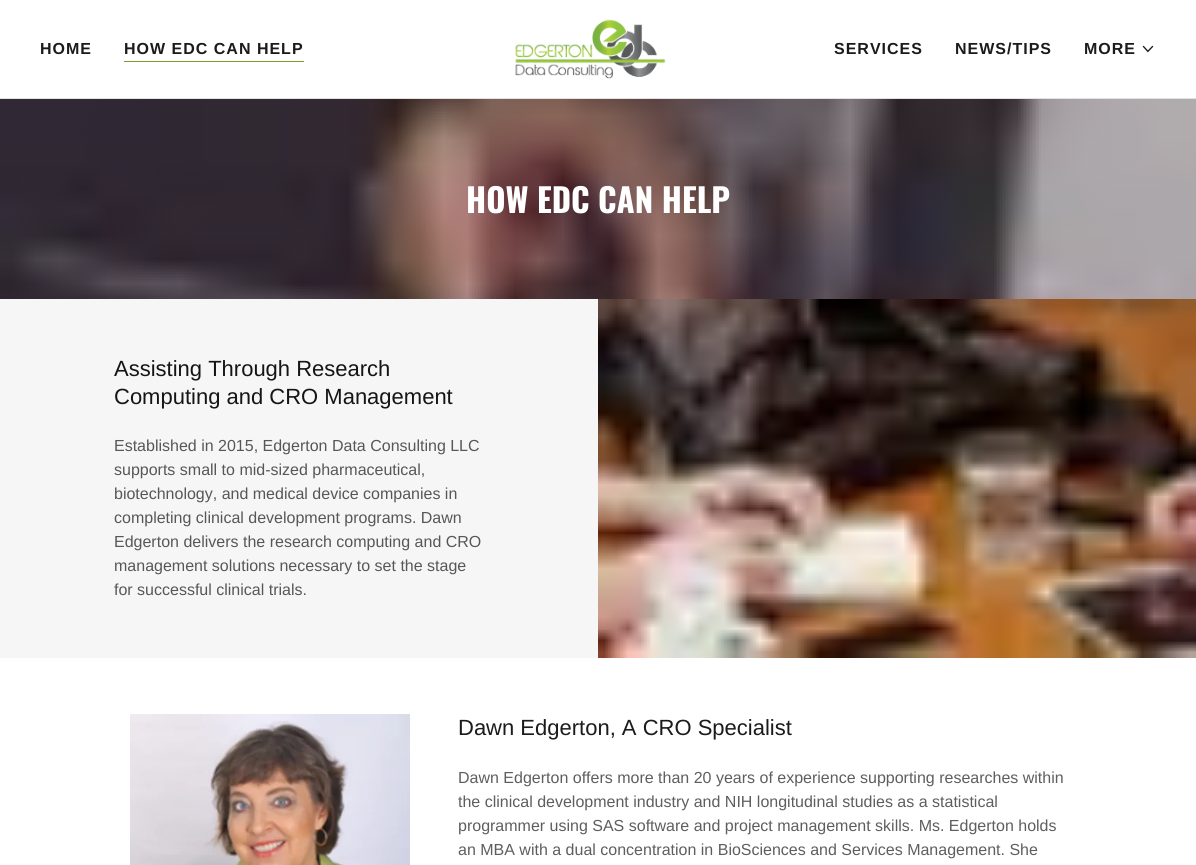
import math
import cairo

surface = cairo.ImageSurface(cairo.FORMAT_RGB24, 1196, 865)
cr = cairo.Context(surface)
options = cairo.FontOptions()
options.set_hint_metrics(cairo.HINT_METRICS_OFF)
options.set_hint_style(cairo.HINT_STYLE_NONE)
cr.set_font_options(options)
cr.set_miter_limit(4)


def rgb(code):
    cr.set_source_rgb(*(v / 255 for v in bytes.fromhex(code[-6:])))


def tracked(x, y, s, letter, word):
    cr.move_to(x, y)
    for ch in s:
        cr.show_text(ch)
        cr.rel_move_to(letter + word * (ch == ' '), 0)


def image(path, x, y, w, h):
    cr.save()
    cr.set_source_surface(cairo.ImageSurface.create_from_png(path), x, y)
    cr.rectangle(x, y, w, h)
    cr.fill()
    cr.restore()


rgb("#ffffff")
cr.paint()
rgb("#7f9b28")
cr.rectangle(124, 61, 180, 1)
cr.fill()
image("img/1.png", 515, 19, 151, 60)
image("img/2.png", 1142, 45, 12, 8)
rgb("#e2e2e2")
cr.rectangle(0, 98, 1196, 1)
cr.fill()
image("img/3.png", 0, 99, 1196, 200)
rgb("#f6f6f6")
cr.rectangle(0, 299, 598, 359)
cr.fill()
image("img/4.png", 598, 299, 598, 359)
image("img/5.png", 130, 714, 280, 151)
cr.select_font_face("Liberation Sans", cairo.FONT_SLANT_NORMAL, cairo.FONT_WEIGHT_BOLD)
cr.set_font_size(16)
rgb("#1b1b1b")
for x, y, s in [
    (40, 54, "HOME"),
    (124, 54, "HOW EDC CAN HELP"),
    (834, 54, "SERVICES"),
    (955, 54, "NEWS/TIPS"),
    (1084, 54, "MORE"),
]:
    tracked(x, y, s, 1, 0)
cr.select_font_face("Oswald", cairo.FONT_SLANT_NORMAL, cairo.FONT_WEIGHT_BOLD)
cr.set_font_size(33)
rgb("#ffffff")
cr.move_to(466, 213)
cr.show_text("HOW EDC CAN HELP")
cr.select_font_face("Liberation Sans")
cr.set_font_size(22)
rgb("#151515")
cr.move_to(114, 376)
cr.show_text("Assisting Through Research")
cr.move_to(114, 404)
cr.show_text("Computing and CRO Management")
cr.set_font_size(16)
rgb("#575757")
for x, y, s in [
    (114, 451, "Established in 2015, Edgerton Data Consulting LLC"),
    (114, 475, "supports small to mid-sized pharmaceutical,"),
    (114, 499, "biotechnology, and medical device companies in"),
    (114, 523, "completing clinical development programs. Dawn"),
    (114, 547, "Edgerton delivers the research computing and CRO"),
    (114, 571, "management solutions necessary to set the stage"),
    (114, 595, "for successful clinical trials."),
]:
    cr.move_to(x, y)
    cr.show_text(s)
cr.set_font_size(22)
rgb("#1b1b1b")
cr.move_to(458, 735)
cr.show_text("Dawn Edgerton, A CRO Specialist")
cr.set_font_size(16)
rgb("#5e5e5e")
for x, y, s in [
    (458, 783, "Dawn Edgerton offers more than 20 years of experience supporting researches within"),
    (458, 807, "the clinical development industry and NIH longitudinal studies as a statistical"),
    (458, 831, "programmer using SAS software and project management skills. Ms. Edgerton holds"),
    (458, 855, "an MBA with a dual concentration in BioSciences and Services Management. She"),
]:
    cr.move_to(x, y)
    cr.show_text(s)
surface.write_to_png("page.png")
